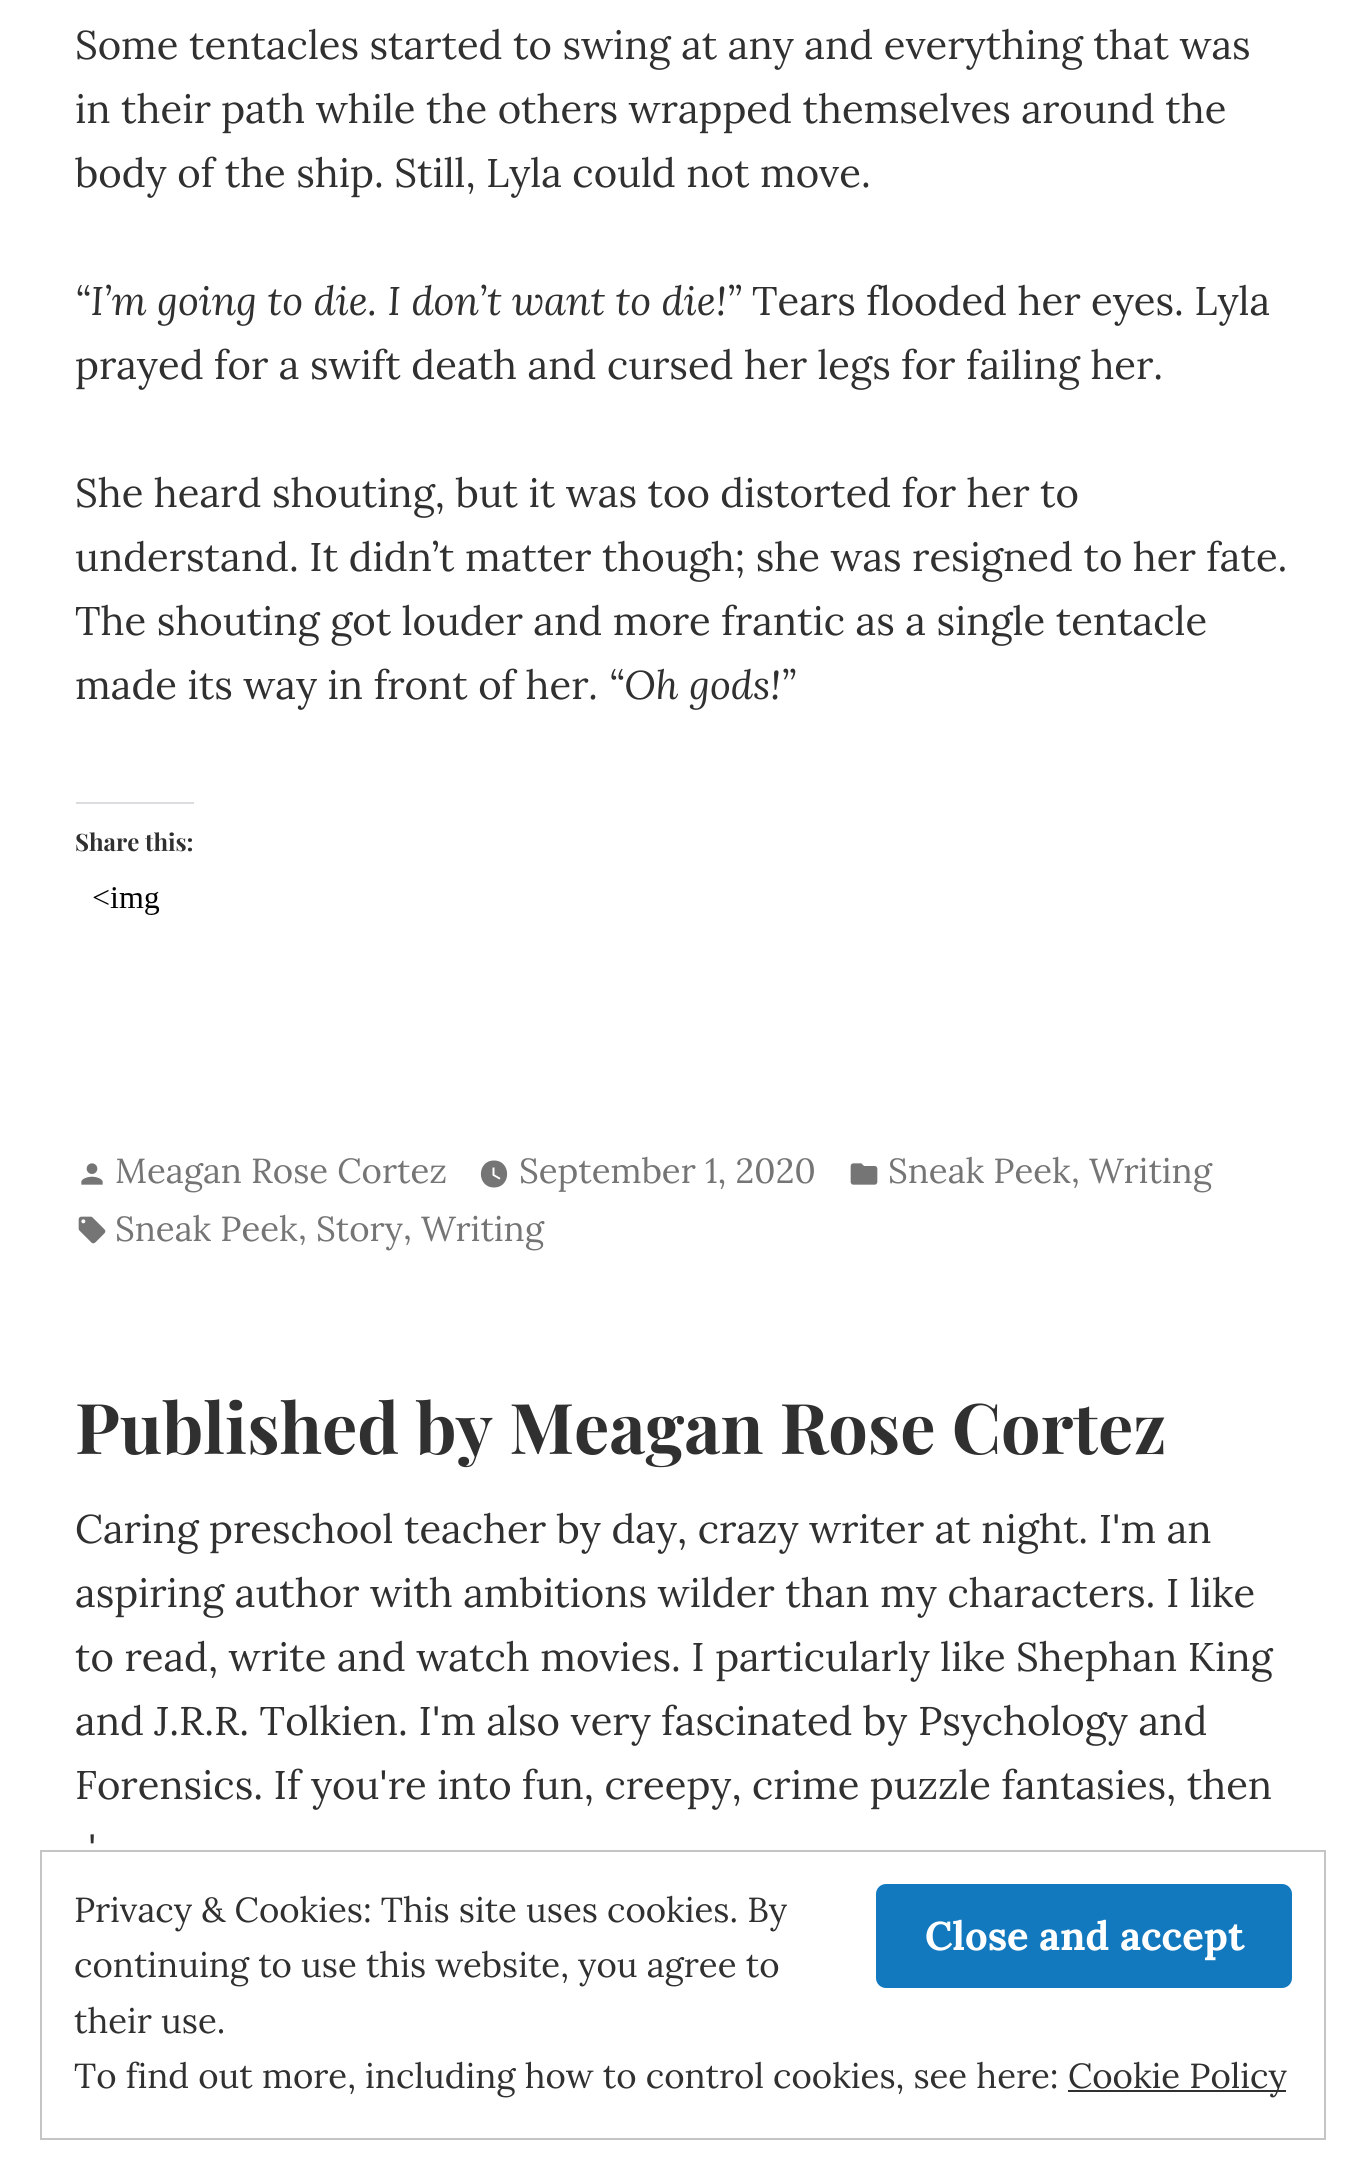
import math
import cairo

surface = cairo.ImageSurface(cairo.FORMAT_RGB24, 1366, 2180)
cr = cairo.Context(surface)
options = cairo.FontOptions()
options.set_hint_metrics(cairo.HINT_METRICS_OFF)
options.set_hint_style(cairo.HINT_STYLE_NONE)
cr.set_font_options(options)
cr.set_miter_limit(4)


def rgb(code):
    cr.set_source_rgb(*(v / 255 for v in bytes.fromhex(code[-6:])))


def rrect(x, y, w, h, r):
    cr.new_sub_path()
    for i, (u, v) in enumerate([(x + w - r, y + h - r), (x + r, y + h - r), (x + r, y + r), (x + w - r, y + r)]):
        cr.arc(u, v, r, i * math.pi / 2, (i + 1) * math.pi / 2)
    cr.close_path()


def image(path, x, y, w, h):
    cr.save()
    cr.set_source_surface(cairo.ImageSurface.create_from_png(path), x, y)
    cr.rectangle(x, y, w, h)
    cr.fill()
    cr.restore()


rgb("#ffffff")
cr.paint()
rgb("#dcdcde")
cr.rectangle(76, 802, 118, 2)
cr.fill()
image("img/1.png", 93, 887, 67, 28)
image("img/2.png", 81, 1163, 22, 22)
rgb("#757575")
cr.new_path()
cr.move_to(494, 1160.5)
cr.curve_to(476.5, 1160.5, 476.5, 1187.5, 494, 1187.5)
cr.curve_to(511.5, 1187.5, 511.5, 1160.5, 494, 1160.5)
cr.close_path()
cr.move_to(499.5, 1179.5)
cr.line_to(492.5, 1175.5)
cr.line_to(492.5, 1167.5)
cr.line_to(494.5, 1167.5)
cr.line_to(494.5, 1174.5)
cr.line_to(500.5, 1178)
cr.close_path()
cr.fill()
image("img/3.png", 850, 1163, 28, 22)
image("img/4.png", 78, 1216, 28, 28)
cr.rectangle(41, 1851, 1284, 288)
rgb("#c5c5c5")
cr.stroke()
rgb("#1279be")
rrect(876, 1884, 416, 104, 10)
cr.fill()
rgb("#303030")
cr.rectangle(1068, 2090, 218, 2)
cr.fill()
cr.select_font_face("Lora")
cr.set_font_size(40)
for x, y, s in [
    (75, 59, "Some tentacles started to swing at any and everything that was"),
    (75, 123, "in their path while the others wrapped themselves around the"),
    (75, 187, "body of the ship. Still, Lyla could not move."),
]:
    cr.move_to(x, y)
    cr.show_text(s)
cr.select_font_face("Lora", cairo.FONT_SLANT_ITALIC)
cr.move_to(75, 315)
cr.show_text("“I’m going to die. I don’t want to die!”")
cr.select_font_face("Lora")
for x, y, s in [
    (752, 315, "Tears flooded her eyes. Lyla"),
    (75, 379, "prayed for a swift death and cursed her legs for failing her."),
    (75, 507, "She heard shouting, but it was too distorted for her to"),
    (75, 571, "understand. It didn’t matter though; she was resigned to her fate."),
    (75, 635, "The shouting got louder and more frantic as a single tentacle"),
    (75, 699, "made its way in front of her"),
]:
    cr.move_to(x, y)
    cr.show_text(s)
cr.select_font_face("Lora", cairo.FONT_SLANT_ITALIC)
cr.move_to(589, 699)
cr.show_text(". “Oh gods!”")
cr.select_font_face("Playfair Display", cairo.FONT_SLANT_NORMAL, cairo.FONT_WEIGHT_BOLD)
cr.set_font_size(24)
cr.move_to(75, 851)
cr.show_text("Share this:")
cr.select_font_face("Lora")
cr.set_font_size(34.75)
rgb("#757575")
for x, y, s in [
    (115, 1183, "Meagan Rose Cortez"),
    (519, 1183, "September 1, 2020"),
    (888, 1183, "Sneak Peek"),
    (1071, 1182, ","),
    (1089, 1183, "Writing"),
    (115, 1241, "Sneak Peek"),
    (298, 1239, ","),
    (316, 1241, "Story"),
    (403, 1239, ","),
    (421, 1241, "Writing"),
]:
    cr.move_to(x, y)
    cr.show_text(s)
cr.select_font_face("Playfair Display", cairo.FONT_SLANT_NORMAL, cairo.FONT_WEIGHT_BOLD)
cr.set_font_size(70)
rgb("#303030")
cr.move_to(75, 1454)
cr.show_text("Published by Meagan Rose Cortez")
cr.select_font_face("Lora")
cr.set_font_size(40)
for x, y, s in [
    (75, 1543, "Caring preschool teacher by day, crazy writer at night. I'm an"),
    (75, 1607, "aspiring author with ambitions wilder than my characters. I like"),
    (75, 1671, "to read, write and watch movies. I particularly like Shephan King"),
    (75, 1735, "and J.R.R. Tolkien. I'm also very fascinated by Psychology and"),
    (75, 1799, "Forensics. If you're into fun, creepy, crime puzzle fantasies, then"),
    (88, 1863, "'"),
]:
    cr.move_to(x, y)
    cr.show_text(s)
cr.set_font_size(34.75)
cr.move_to(74, 1922)
cr.show_text("Privacy & Cookies: This site uses cookies. By")
cr.select_font_face("Lora", cairo.FONT_SLANT_NORMAL, cairo.FONT_WEIGHT_BOLD)
cr.set_font_size(40)
rgb("#ffffff")
cr.move_to(925, 1950)
cr.show_text("Close and accept")
cr.select_font_face("Lora")
cr.set_font_size(34.75)
rgb("#303030")
for x, y, s in [
    (74, 1977, "continuing to use this website, you agree to"),
    (74, 2033, "their use."),
    (74, 2088, "To find out more, including how to control cookies, see here:"),
    (1068, 2088, "Cookie Policy"),
]:
    cr.move_to(x, y)
    cr.show_text(s)
surface.write_to_png("page.png")
